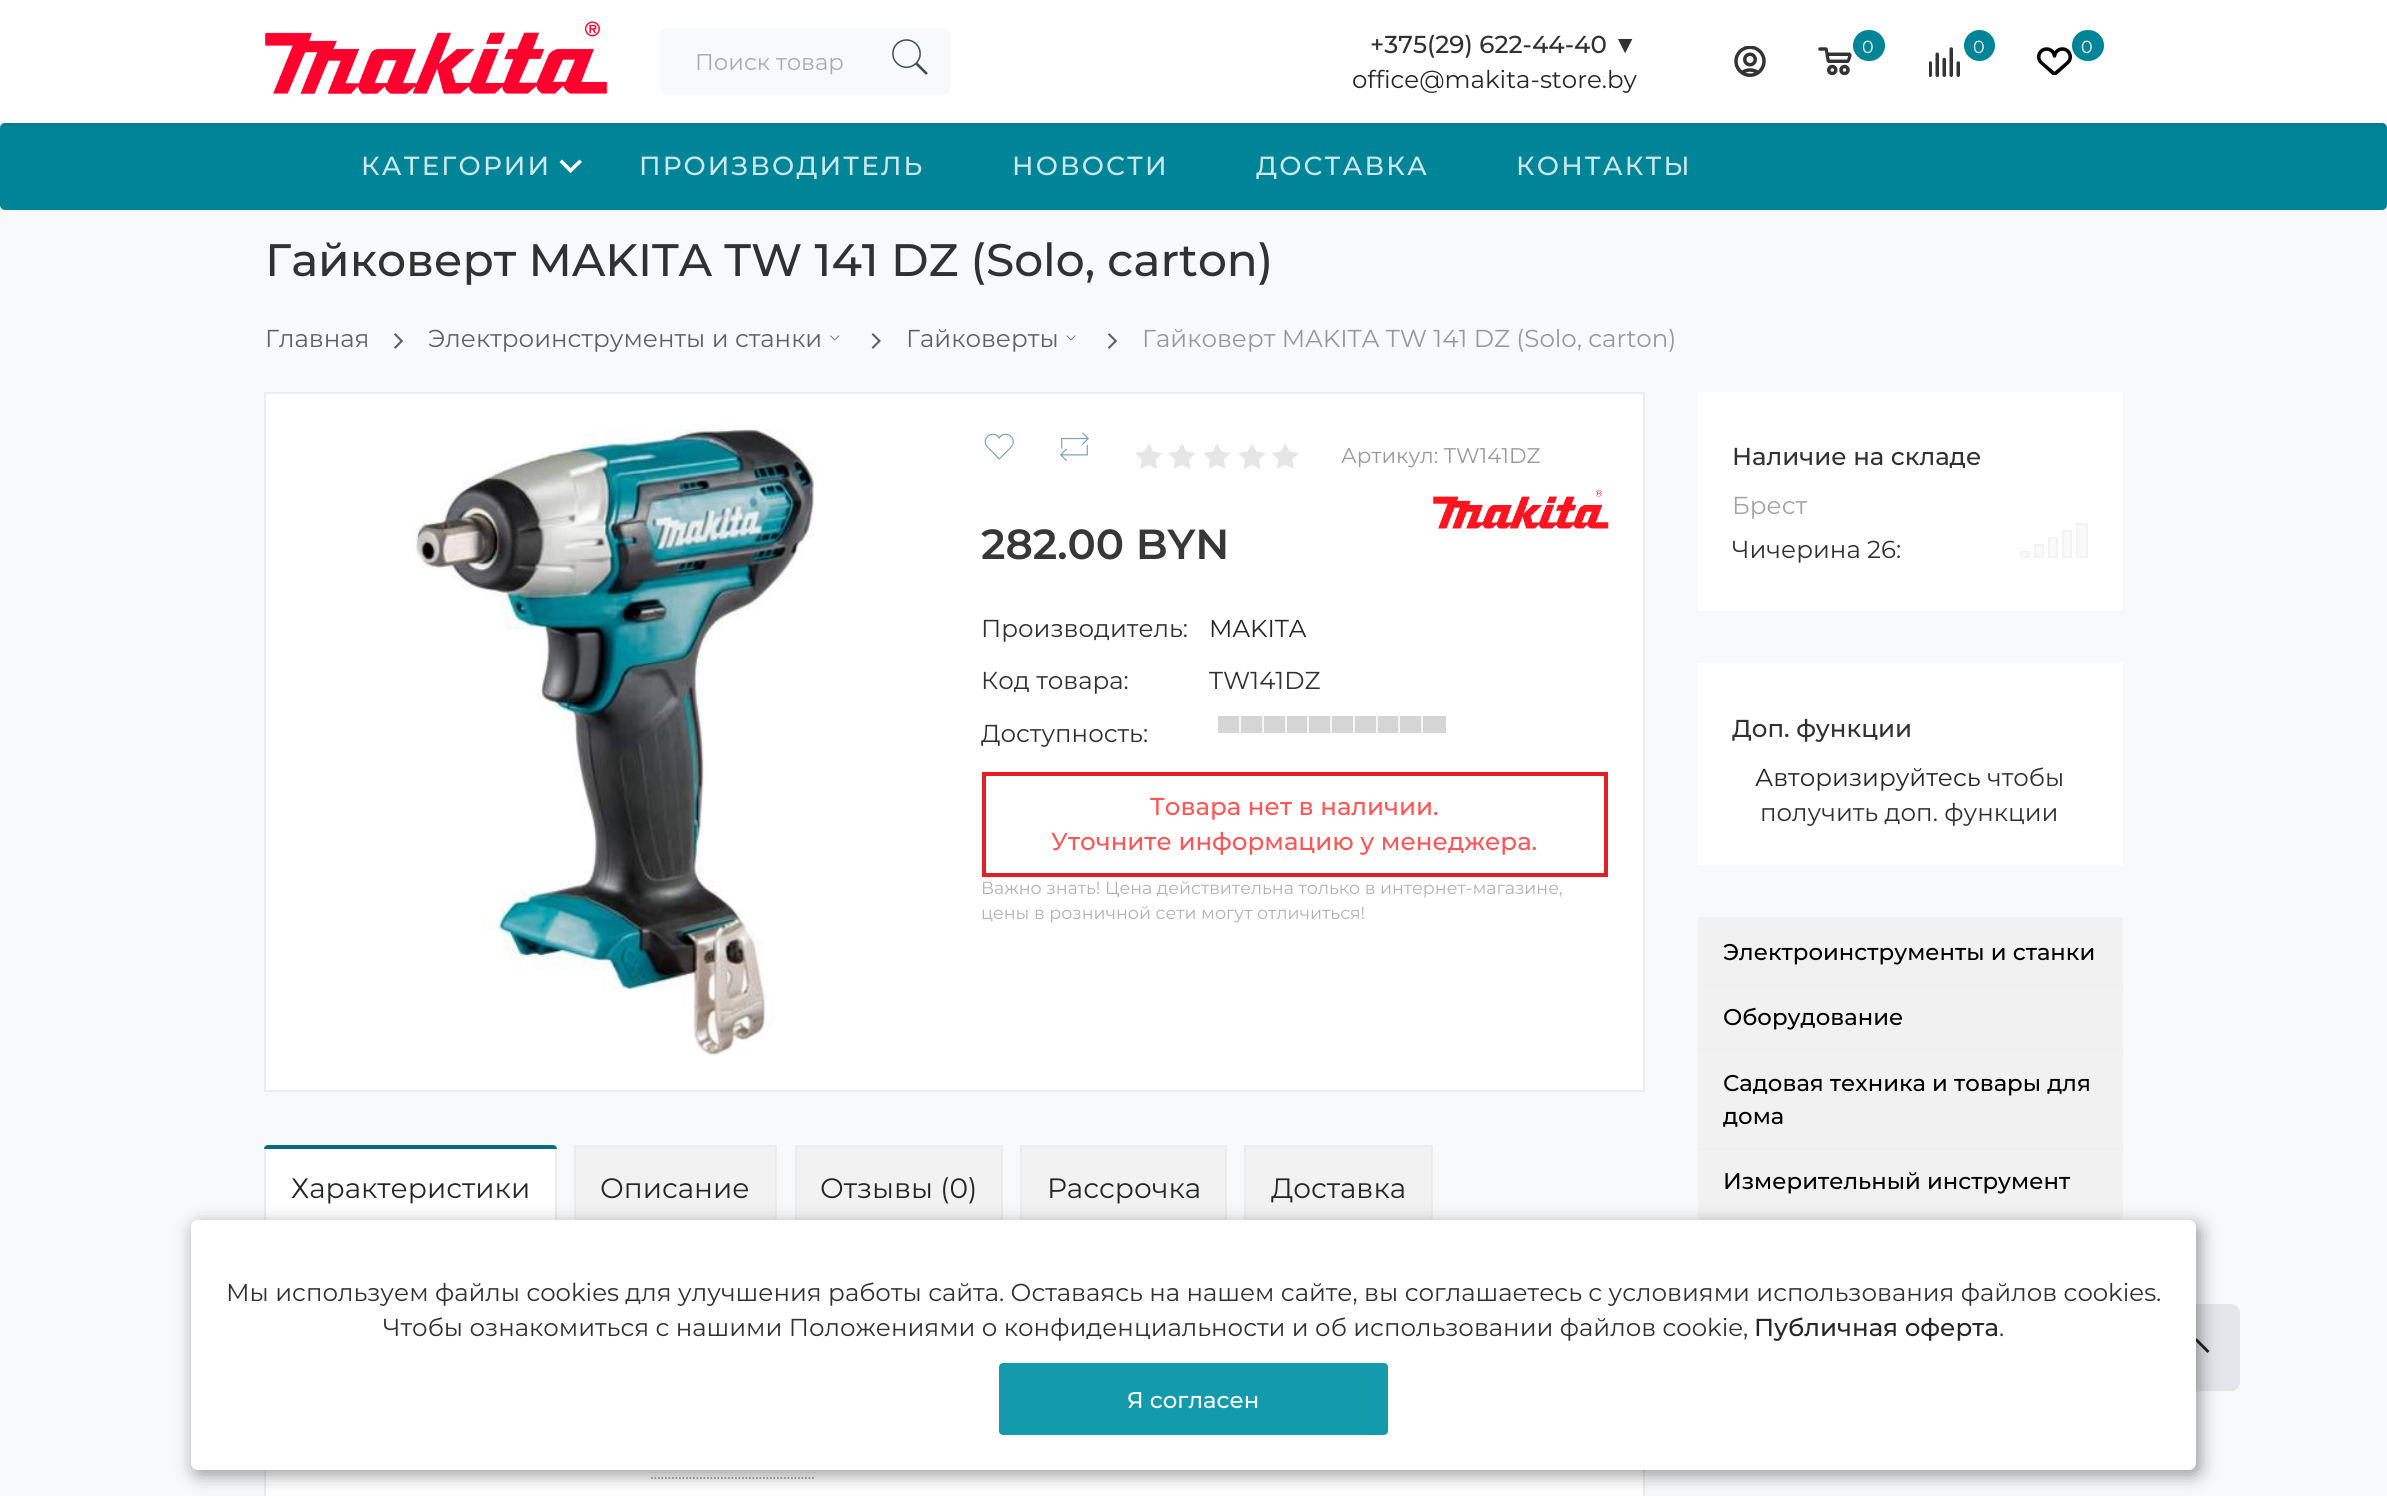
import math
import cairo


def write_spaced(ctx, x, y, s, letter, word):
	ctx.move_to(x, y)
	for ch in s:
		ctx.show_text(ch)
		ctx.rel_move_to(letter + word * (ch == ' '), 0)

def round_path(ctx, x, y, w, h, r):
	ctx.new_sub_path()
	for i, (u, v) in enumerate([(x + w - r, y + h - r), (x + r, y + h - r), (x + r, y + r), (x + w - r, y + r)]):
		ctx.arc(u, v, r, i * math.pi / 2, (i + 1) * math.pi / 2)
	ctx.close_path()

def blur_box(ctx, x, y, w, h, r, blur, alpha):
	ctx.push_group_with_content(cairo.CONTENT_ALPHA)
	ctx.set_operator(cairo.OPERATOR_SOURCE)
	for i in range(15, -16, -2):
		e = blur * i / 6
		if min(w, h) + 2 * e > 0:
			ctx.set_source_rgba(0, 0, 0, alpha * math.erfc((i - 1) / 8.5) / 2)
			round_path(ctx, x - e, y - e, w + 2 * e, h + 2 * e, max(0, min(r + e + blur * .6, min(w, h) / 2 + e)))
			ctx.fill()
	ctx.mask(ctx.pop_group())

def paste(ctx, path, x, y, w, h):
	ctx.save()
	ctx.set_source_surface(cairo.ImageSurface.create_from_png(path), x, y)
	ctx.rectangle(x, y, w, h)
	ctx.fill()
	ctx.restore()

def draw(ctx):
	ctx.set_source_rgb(0.969, 0.973, 0.984)
	ctx.paint()
	ctx.set_source_rgb(0.945, 0.945, 0.949)
	ctx.rectangle(1698, 1215, 425, 5)
	ctx.rectangle(1698, 1150, 425, 63)
	ctx.fill()
	ctx.set_source_rgb(0.937, 0.937, 0.937)
	ctx.rectangle(1698, 1213, 425, 2)
	ctx.fill()
	ctx.set_source_rgb(0.945, 0.945, 0.949)
	ctx.rectangle(1698, 1050, 425, 98)
	ctx.fill()
	ctx.set_source_rgb(0.937, 0.937, 0.937)
	ctx.rectangle(1698, 1148, 425, 2)
	ctx.fill()
	ctx.set_source_rgb(0.945, 0.945, 0.949)
	ctx.rectangle(1698, 985, 425, 63)
	ctx.fill()
	ctx.set_source_rgb(0.937, 0.937, 0.937)
	ctx.rectangle(1698, 1048, 425, 2)
	ctx.fill()
	ctx.set_source_rgb(0, 0.522, 0.596)
	round_path(ctx, 0, 123, 2387, 87, 5)
	ctx.fill()
	ctx.set_source_rgb(0, 0, 0)
	blur_box(ctx, 2, 7, 2383, 119, 0, 2, 0.08)
	ctx.set_source_rgb(1, 1, 1)
	ctx.rectangle(0, 0, 2387, 123)
	ctx.fill()
	paste(ctx, 'media/1.png', 265, 21, 343, 73)
	ctx.set_source_rgb(0.969, 0.973, 0.984)
	round_path(ctx, 660, 28, 290, 67, 7)
	ctx.fill()
	ctx.select_font_face('Montserrat')
	ctx.set_font_size(22.75)
	ctx.set_source_rgb(0.671, 0.671, 0.671)
	ctx.move_to(695, 70)
	ctx.show_text('Поиск товар')
	paste(ctx, 'media/2.png', 892, 39, 36, 36)
	ctx.select_font_face('Montserrat Medium')
	ctx.set_font_size(24.5)
	ctx.set_source_rgb(0.192, 0.192, 0.192)
	ctx.move_to(1370, 53)
	ctx.show_text('+375(29) 622-44-40')
	ctx.select_font_face('Liberation Sans')
	ctx.move_to(1613, 53)
	ctx.show_text('▼')
	ctx.select_font_face('Montserrat')
	ctx.set_source_rgb(0.145, 0.153, 0.153)
	ctx.move_to(1352, 88)
	ctx.show_text('office@makita-store.by')
	paste(ctx, 'media/3.png', 1734, 46, 32, 31)
	paste(ctx, 'media/4.png', 1818, 47, 34, 28)
	ctx.set_source_rgb(0, 0.522, 0.596)
	round_path(ctx, 1853, 30, 32, 31, 15.5)
	ctx.fill()
	ctx.set_font_size(17.5)
	ctx.set_source_rgb(1, 1, 1)
	ctx.move_to(1862, 53)
	ctx.show_text('0')
	paste(ctx, 'media/5.png', 1929, 47, 31, 30)
	ctx.set_source_rgb(0, 0.522, 0.596)
	ctx.arc(1979.5, 45.5, 15.5, 0, 2 * math.pi)
	ctx.fill()
	ctx.set_source_rgb(1, 1, 1)
	ctx.move_to(1973, 53)
	ctx.show_text('0')
	paste(ctx, 'media/6.png', 2037, 47, 35, 28)
	ctx.set_source_rgb(0, 0.522, 0.596)
	round_path(ctx, 2072, 30, 32, 31, 15.5)
	ctx.fill()
	ctx.set_source_rgb(1, 1, 1)
	ctx.move_to(2081, 53)
	ctx.show_text('0')
	ctx.select_font_face('Montserrat Medium')
	ctx.set_font_size(26.25)
	ctx.set_source_rgb(0.8, 0.906, 0.918)
	write_spaced(ctx, 361, 175, 'КАТЕГОРИИ', 2.1, 0)
	ctx.set_source_rgb(1, 1, 1)
	ctx.new_path()
	ctx.move_to(562, 159.5)
	ctx.line_to(573, 170.5)
	ctx.line_to(570.5, 173)
	ctx.line_to(559.5, 162)
	ctx.close_path()
	ctx.fill()
	ctx.new_path()
	ctx.move_to(568, 170.5)
	ctx.line_to(579.5, 159.5)
	ctx.line_to(582, 162)
	ctx.line_to(570.5, 173)
	ctx.close_path()
	ctx.fill()
	ctx.set_source_rgb(0.8, 0.906, 0.918)
	for x, y, s in [
		(639, 175, 'ПРОИЗВОДИТЕЛЬ'),
		(1012, 175, 'НОВОСТИ'),
		(1256, 175, 'ДОСТАВКА'),
		(1516, 175, 'КОНТАКТЫ'),
	]:
		write_spaced(ctx, x, y, s, 2.1, 0)
	ctx.set_font_size(45.5)
	ctx.set_source_rgb(0.192, 0.192, 0.192)
	ctx.move_to(265, 276)
	ctx.show_text('Гайковерт MAKITA TW 141 DZ (Solo, carton)')
	ctx.select_font_face('Montserrat')
	ctx.set_font_size(24.5)
	ctx.set_source_rgb(0.38, 0.38, 0.38)
	ctx.move_to(265, 347)
	ctx.show_text('Главная')
	paste(ctx, 'media/7.png', 394, 333, 9, 16)
	ctx.move_to(428, 347)
	ctx.show_text('Электроинструменты и станки')
	paste(ctx, 'media/8.png', 830, 335, 10, 6)
	paste(ctx, 'media/9.png', 871, 333, 10, 16)
	ctx.move_to(906, 347)
	ctx.show_text('Гайковерты')
	paste(ctx, 'media/10.png', 1066, 335, 10, 6)
	paste(ctx, 'media/7.png', 1108, 333, 9, 16)
	ctx.set_source_rgb(0.6, 0.6, 0.6)
	ctx.move_to(1142, 347)
	ctx.show_text('Гайковерт MAKITA TW 141 DZ (Solo, carton)')
	ctx.set_source_rgb(1, 1, 1)
	ctx.rectangle(265, 393, 1379, 698)
	ctx.fill_preserve()
	ctx.set_source_rgb(0.925, 0.925, 0.925)
	ctx.stroke()
	paste(ctx, 'media/11.png', 413, 429, 411, 627)
	paste(ctx, 'media/12.png', 984, 433, 30, 27)
	paste(ctx, 'media/13.png', 1060, 432, 29, 29)
	paste(ctx, 'media/14.png', 1136, 444, 26, 25)
	paste(ctx, 'media/15.png', 1169, 444, 26, 25)
	paste(ctx, 'media/15.png', 1204, 444, 26, 25)
	paste(ctx, 'media/15.png', 1239, 444, 26, 25)
	paste(ctx, 'media/16.png', 1272, 444, 26, 25)
	ctx.set_font_size(21.25)
	ctx.set_source_rgb(0.6, 0.6, 0.6)
	ctx.move_to(1341, 463)
	ctx.show_text('Артикул: TW141DZ')
	paste(ctx, 'media/17.png', 1433, 490, 176, 39)
	ctx.select_font_face('Montserrat SemiBold')
	ctx.set_font_size(42)
	ctx.set_source_rgb(0.216, 0.216, 0.216)
	ctx.move_to(981, 559)
	ctx.show_text('282.00 BYN')
	ctx.select_font_face('Montserrat')
	ctx.set_font_size(24.5)
	ctx.set_source_rgb(0.192, 0.192, 0.192)
	ctx.move_to(981, 637)
	ctx.show_text('Производитель:')
	ctx.set_source_rgb(0.145, 0.153, 0.153)
	ctx.move_to(1209, 637)
	ctx.show_text('MAKITA')
	ctx.set_source_rgb(0.192, 0.192, 0.192)
	for x, y, s in [
		(981, 689, 'Код товара:'),
		(1209, 689, 'TW141DZ'),
		(981, 742, 'Доступность:'),
	]:
		ctx.move_to(x, y)
		ctx.show_text(s)
	ctx.set_source_rgb(0.835, 0.835, 0.835)
	ctx.rectangle(1218, 716, 228, 17)
	ctx.fill()
	ctx.set_source_rgb(0.961, 0.961, 0.961)
	ctx.rectangle(1239, 716, 2, 17)
	ctx.rectangle(1262, 716, 2, 17)
	ctx.rectangle(1285, 716, 2, 17)
	ctx.rectangle(1307, 716, 2, 17)
	ctx.rectangle(1330, 716, 2, 17)
	ctx.rectangle(1353, 716, 2, 17)
	ctx.rectangle(1376, 716, 2, 17)
	ctx.rectangle(1398, 716, 2, 17)
	ctx.rectangle(1421, 716, 2, 17)
	ctx.fill()
	ctx.rectangle(984, 774, 622, 101)
	ctx.set_source_rgb(0.89, 0.122, 0.145)
	ctx.set_line_width(4)
	ctx.stroke()
	ctx.select_font_face('Montserrat Medium')
	ctx.set_source_rgb(1, 0.333, 0.333)
	ctx.move_to(1150, 815)
	ctx.show_text('Товара нет в наличии.')
	ctx.move_to(1051, 850)
	ctx.show_text('Уточните информацию у менеджера.')
	ctx.select_font_face('Montserrat')
	ctx.set_font_size(17.5)
	ctx.set_source_rgb(0.702, 0.694, 0.694)
	ctx.move_to(981, 894)
	ctx.show_text('Важно знать! Цена действительна только в интернет-магазине,')
	ctx.move_to(981, 919)
	ctx.show_text('цены в розничной сети могут отличиться!')
	ctx.rectangle(265, 1146, 291, 90)
	ctx.set_source_rgb(0.925, 0.925, 0.925)
	ctx.set_line_width(2)
	ctx.stroke()
	ctx.set_source_rgb(0.039, 0.42, 0.514)
	ctx.new_path()
	ctx.move_to(268, 1145)
	ctx.line_to(553, 1145)
	ctx.curve_to(555, 1145, 557, 1147, 557, 1149)
	ctx.line_to(264, 1149)
	ctx.curve_to(264, 1147, 266, 1145, 268, 1145)
	ctx.close_path()
	ctx.fill()
	ctx.set_source_rgb(1, 1, 1)
	ctx.rectangle(266, 1149, 289, 71)
	ctx.fill()
	ctx.set_font_size(28)
	ctx.set_source_rgb(0.145, 0.153, 0.153)
	ctx.move_to(291, 1198)
	ctx.show_text('Характеристики')
	ctx.set_source_rgb(0.949, 0.949, 0.953)
	ctx.rectangle(576, 1147, 199, 73)
	ctx.fill()
	ctx.rectangle(575, 1146, 201, 90)
	ctx.set_source_rgb(0.925, 0.925, 0.925)
	ctx.stroke()
	ctx.set_source_rgb(0.145, 0.153, 0.153)
	ctx.move_to(600, 1198)
	ctx.show_text('Описание')
	ctx.set_source_rgb(0.949, 0.949, 0.953)
	ctx.rectangle(797, 1147, 204, 73)
	ctx.fill()
	ctx.rectangle(796, 1146, 206, 90)
	ctx.set_source_rgb(0.925, 0.925, 0.925)
	ctx.stroke()
	ctx.set_source_rgb(0.145, 0.153, 0.153)
	ctx.move_to(820, 1198)
	ctx.show_text('Отзывы (0)')
	ctx.set_source_rgb(0.949, 0.949, 0.953)
	ctx.rectangle(1022, 1147, 203, 73)
	ctx.fill()
	ctx.rectangle(1021, 1146, 205, 90)
	ctx.set_source_rgb(0.925, 0.925, 0.925)
	ctx.stroke()
	ctx.set_source_rgb(0.145, 0.153, 0.153)
	ctx.move_to(1047, 1198)
	ctx.show_text('Рассрочка')
	ctx.set_source_rgb(0.949, 0.949, 0.953)
	ctx.rectangle(1246, 1147, 185, 73)
	ctx.fill()
	ctx.rectangle(1245, 1146, 187, 90)
	ctx.set_source_rgb(0.925, 0.925, 0.925)
	ctx.stroke()
	ctx.set_source_rgb(0.145, 0.153, 0.153)
	ctx.move_to(1271, 1198)
	ctx.show_text('Доставка')
	ctx.set_source_rgb(1, 1, 1)
	ctx.rectangle(266, 1470, 1377, 26)
	ctx.fill()
	ctx.rectangle(265, 1265, 1379, 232)
	ctx.set_source_rgb(0.925, 0.925, 0.925)
	ctx.stroke()
	ctx.new_path()
	ctx.move_to(651, 1478)
	ctx.line_to(815.5, 1478)
	ctx.set_source_rgb(0.651, 0.647, 0.647)
	ctx.set_line_width(1.8)
	ctx.set_dash([1.75, 1.75])
	ctx.stroke()
	ctx.set_source_rgb(1, 1, 1)
	ctx.rectangle(1698, 392, 425, 219)
	ctx.fill()
	ctx.select_font_face('Montserrat Medium')
	ctx.set_font_size(24.5)
	ctx.set_source_rgb(0.192, 0.192, 0.192)
	ctx.move_to(1732, 465)
	ctx.show_text('Наличие на складе')
	ctx.select_font_face('Montserrat')
	ctx.set_source_rgb(0.639, 0.639, 0.639)
	ctx.move_to(1732, 514)
	ctx.show_text('Брест')
	ctx.set_source_rgb(0.192, 0.192, 0.192)
	ctx.move_to(1732, 558)
	ctx.show_text('Чичерина 26:')
	ctx.set_source_rgb(0.98, 0.98, 0.98)
	ctx.rectangle(2021, 552, 8, 5)
	ctx.fill_preserve()
	ctx.set_source_rgb(0.953, 0.953, 0.953)
	ctx.set_line_width(2)
	ctx.set_dash([])
	ctx.stroke()
	ctx.set_source_rgb(0.98, 0.98, 0.98)
	ctx.rectangle(2035, 545, 8, 12)
	ctx.fill_preserve()
	ctx.set_source_rgb(0.953, 0.953, 0.953)
	ctx.stroke()
	ctx.set_source_rgb(0.98, 0.98, 0.98)
	ctx.rectangle(2049, 538, 8, 19)
	ctx.fill_preserve()
	ctx.set_source_rgb(0.953, 0.953, 0.953)
	ctx.stroke()
	ctx.set_source_rgb(0.98, 0.98, 0.98)
	ctx.rectangle(2063, 531, 8, 26)
	ctx.fill_preserve()
	ctx.set_source_rgb(0.953, 0.953, 0.953)
	ctx.stroke()
	ctx.set_source_rgb(0.98, 0.98, 0.98)
	ctx.rectangle(2077, 524, 10, 33)
	ctx.fill_preserve()
	ctx.set_source_rgb(0.953, 0.953, 0.953)
	ctx.stroke()
	ctx.set_source_rgb(1, 1, 1)
	ctx.rectangle(1698, 663, 425, 202)
	ctx.fill()
	ctx.select_font_face('Montserrat Medium')
	ctx.set_source_rgb(0.192, 0.192, 0.192)
	ctx.move_to(1732, 737)
	ctx.show_text('Доп. функции')
	ctx.select_font_face('Montserrat')
	ctx.set_source_rgb(0.145, 0.153, 0.153)
	ctx.move_to(1755, 786)
	ctx.show_text('Авторизируйтесь')
	ctx.set_source_rgb(0.192, 0.192, 0.192)
	ctx.move_to(1987, 786)
	ctx.show_text('чтобы')
	ctx.move_to(1760, 821)
	ctx.show_text('получить доп. функции')
	ctx.set_source_rgb(0.945, 0.945, 0.949)
	ctx.rectangle(1698, 917, 425, 67)
	ctx.fill()
	ctx.set_source_rgb(0.937, 0.937, 0.937)
	ctx.rectangle(1698, 984, 425, 1)
	ctx.fill()
	ctx.select_font_face('Montserrat Medium')
	ctx.set_font_size(22.75)
	ctx.set_source_rgb(0, 0, 0)
	for x, y, s in [
		(1723, 960, 'Электроинструменты и станки'),
		(1723, 1025, 'Оборудование'),
		(1723, 1091, 'Садовая техника и товары для'),
		(1723, 1124, 'дома'),
		(1723, 1189, 'Измерительный инструмент'),
	]:
		ctx.move_to(x, y)
		ctx.show_text(s)
	ctx.set_source_rgb(0.898, 0.902, 0.918)
	round_path(ctx, 2153, 1304, 87, 87, 9)
	ctx.fill()
	ctx.set_source_rgb(0.133, 0.133, 0.133)
	ctx.new_path()
	ctx.move_to(2198, 1339.5)
	ctx.line_to(2196, 1338)
	ctx.line_to(2183, 1351)
	ctx.line_to(2185, 1353)
	ctx.line_to(2196, 1341.5)
	ctx.line_to(2207.5, 1353)
	ctx.line_to(2209.5, 1351)
	ctx.close_path()
	ctx.fill()
	ctx.set_source_rgb(0, 0, 0)
	blur_box(ctx, 194, 1225, 2006, 250, 7, 9, 0.4)
	ctx.set_source_rgb(1, 1, 1)
	round_path(ctx, 191, 1220, 2005, 250, 7)
	ctx.fill()
	ctx.select_font_face('Montserrat')
	ctx.set_font_size(24.5)
	ctx.set_source_rgb(0.192, 0.192, 0.192)
	ctx.move_to(226, 1301)
	ctx.show_text('Мы используем файлы cookies для улучшения работы сайта. Оставаясь на нашем сайте, вы соглашаетесь с условиями использования файлов cookies.')
	ctx.move_to(383, 1336)
	ctx.show_text('Чтобы ознакомиться с нашими Положениями о конфиденциальности и об использовании файлов cookie,')
	ctx.select_font_face('Montserrat Medium')
	ctx.set_source_rgb(0.145, 0.153, 0.153)
	ctx.move_to(1754, 1336)
	ctx.show_text('Публичная оферта')
	ctx.select_font_face('Montserrat')
	ctx.set_source_rgb(0.192, 0.192, 0.192)
	ctx.move_to(1999, 1336)
	ctx.show_text('.')
	ctx.set_source_rgb(0.075, 0.604, 0.678)
	round_path(ctx, 1000, 1364, 387, 70, 3)
	ctx.fill_preserve()
	ctx.stroke()
	ctx.select_font_face('Montserrat Medium')
	ctx.set_font_size(22.75)
	ctx.set_source_rgb(1, 1, 1)
	ctx.move_to(1127, 1408)
	ctx.show_text('Я согласен')


surface = cairo.ImageSurface(cairo.FORMAT_RGB24, 2387, 1496)
ctx = cairo.Context(surface)
options = cairo.FontOptions()
options.set_hint_metrics(cairo.HINT_METRICS_OFF)
options.set_hint_style(cairo.HINT_STYLE_NONE)
ctx.set_font_options(options)
ctx.set_miter_limit(4)
draw(ctx)
surface.write_to_png('image.png')
